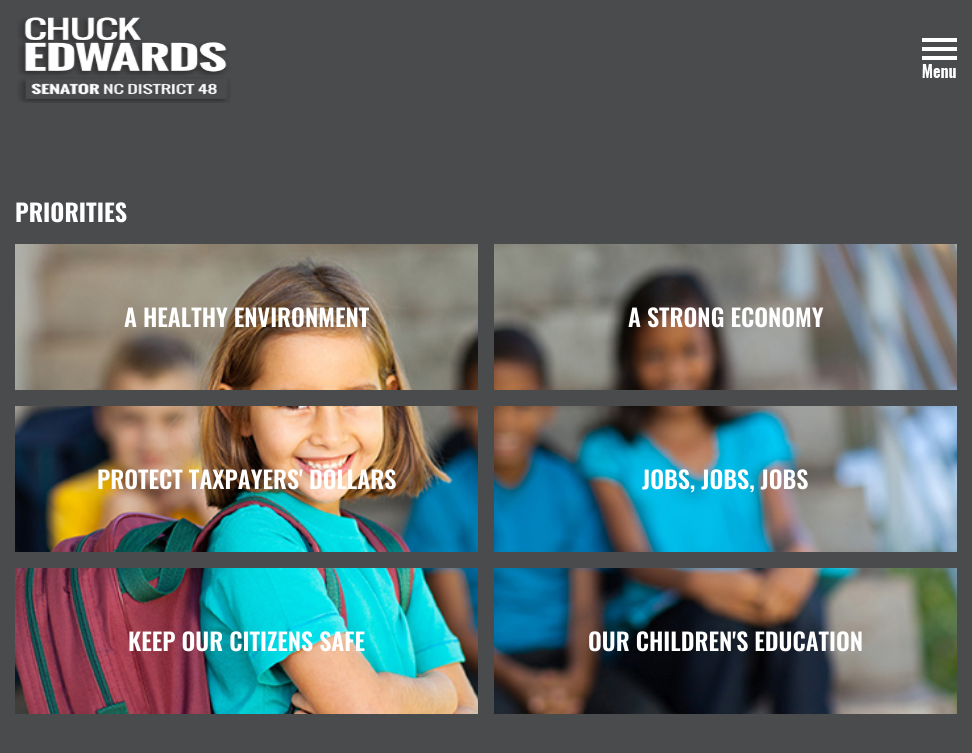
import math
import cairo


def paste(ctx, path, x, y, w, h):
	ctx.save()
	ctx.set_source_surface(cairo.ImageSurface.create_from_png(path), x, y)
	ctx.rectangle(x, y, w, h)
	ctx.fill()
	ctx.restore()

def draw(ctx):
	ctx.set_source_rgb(0.286, 0.294, 0.302)
	ctx.paint()
	paste(ctx, 'media/1.png', 17, 17, 214, 86)
	paste(ctx, 'media/2.png', 922, 38, 35, 40)
	ctx.select_font_face('Oswald', cairo.FONT_SLANT_NORMAL, cairo.FONT_WEIGHT_BOLD)
	ctx.set_font_size(24)
	ctx.set_source_rgb(1, 1, 1)
	ctx.move_to(15, 222)
	ctx.show_text('PRIORITIES')
	paste(ctx, 'media/3.png', 15, 244, 942, 470)
	ctx.set_source_rgb(0.286, 0.294, 0.302)
	ctx.rectangle(478, 236, 8, 162)
	ctx.fill()
	ctx.rectangle(15, 390, 942, 8)
	ctx.fill()
	ctx.select_font_face('Oswald SemiBold')
	ctx.set_source_rgb(1, 1, 1)
	ctx.move_to(124, 327)
	ctx.show_text('A HEALTHY ENVIRONMENT')
	ctx.set_source_rgb(0.286, 0.294, 0.302)
	ctx.rectangle(486, 236, 8, 162)
	ctx.fill()
	ctx.set_source_rgb(1, 1, 1)
	ctx.move_to(628, 327)
	ctx.show_text('A STRONG ECONOMY')
	ctx.set_source_rgb(0.286, 0.294, 0.302)
	ctx.rectangle(15, 398, 942, 8)
	ctx.rectangle(478, 398, 8, 162)
	ctx.rectangle(15, 552, 942, 8)
	ctx.fill()
	ctx.set_source_rgb(1, 1, 1)
	ctx.move_to(97, 489)
	ctx.show_text('PROTECT TAXPAYERS\' DOLLARS')
	ctx.set_source_rgb(0.286, 0.294, 0.302)
	ctx.rectangle(486, 398, 8, 162)
	ctx.fill()
	ctx.set_source_rgb(1, 1, 1)
	ctx.move_to(642, 489)
	ctx.show_text('JOBS, JOBS, JOBS')
	ctx.set_source_rgb(0.286, 0.294, 0.302)
	ctx.rectangle(15, 560, 942, 8)
	ctx.fill()
	ctx.rectangle(478, 560, 16, 162)
	ctx.fill()
	ctx.set_source_rgb(1, 1, 1)
	ctx.move_to(128, 651)
	ctx.show_text('KEEP OUR CITIZENS SAFE')
	ctx.move_to(588, 651)
	ctx.show_text('OUR CHILDREN\'S EDUCATION')


surface = cairo.ImageSurface(cairo.FORMAT_RGB24, 972, 753)
ctx = cairo.Context(surface)
options = cairo.FontOptions()
options.set_hint_metrics(cairo.HINT_METRICS_OFF)
options.set_hint_style(cairo.HINT_STYLE_NONE)
ctx.set_font_options(options)
ctx.set_miter_limit(4)
draw(ctx)
surface.write_to_png('image.png')
